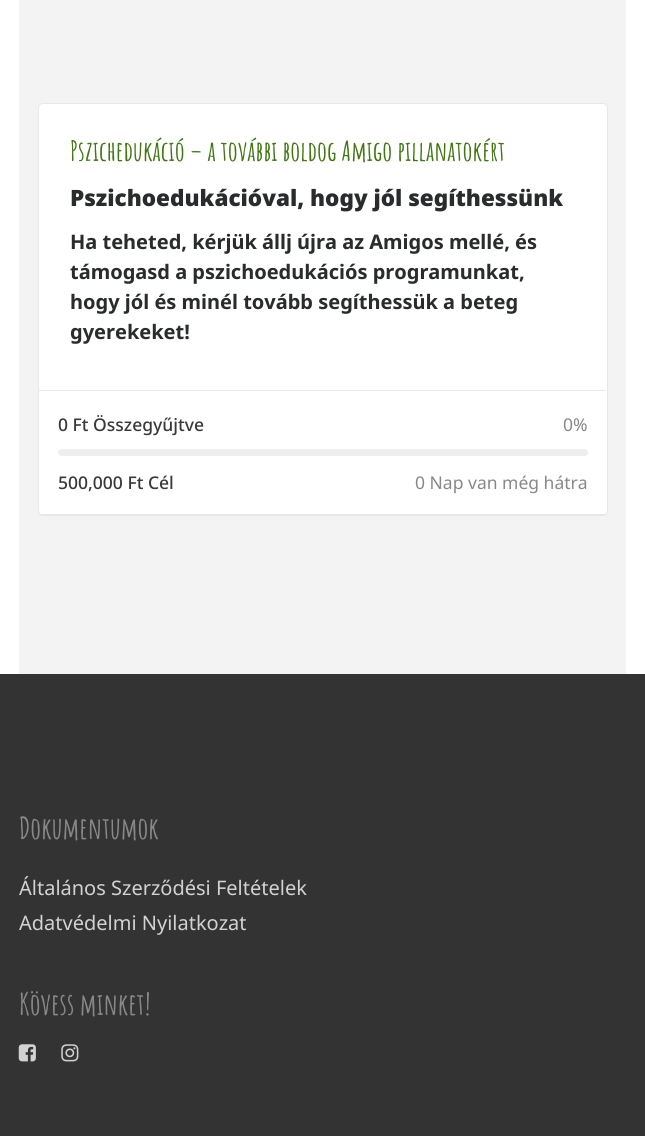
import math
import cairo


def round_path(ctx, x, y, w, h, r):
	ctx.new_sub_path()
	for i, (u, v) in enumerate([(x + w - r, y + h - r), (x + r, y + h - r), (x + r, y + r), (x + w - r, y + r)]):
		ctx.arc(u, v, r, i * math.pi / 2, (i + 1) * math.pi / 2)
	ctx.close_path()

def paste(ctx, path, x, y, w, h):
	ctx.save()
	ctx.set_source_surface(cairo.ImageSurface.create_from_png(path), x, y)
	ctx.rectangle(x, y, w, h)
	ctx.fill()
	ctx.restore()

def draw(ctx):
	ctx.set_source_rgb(1, 1, 1)
	ctx.paint()
	ctx.set_source_rgb(0.953, 0.953, 0.953)
	ctx.rectangle(19, 0, 607, 674)
	ctx.fill()
	ctx.set_source_rgb(1, 1, 1)
	round_path(ctx, 38.5, 103.5, 569, 412, 4.5)
	ctx.fill_preserve()
	ctx.set_source_rgb(0.906, 0.906, 0.906)
	ctx.set_line_width(1)
	ctx.stroke()
	ctx.select_font_face('Amatic SC', cairo.FONT_SLANT_NORMAL, cairo.FONT_WEIGHT_BOLD)
	ctx.set_font_size(27.5)
	ctx.set_source_rgb(0.263, 0.463, 0.075)
	ctx.move_to(70, 161)
	ctx.show_text('Pszichedukáció – a további boldog Amigo pillanatokért')
	ctx.select_font_face('Noto Sans Black')
	ctx.set_font_size(22.5)
	ctx.set_source_rgb(0.161, 0.169, 0.173)
	ctx.move_to(70, 206)
	ctx.show_text('Pszichoedukációval, hogy jól segíthessünk')
	ctx.select_font_face('Noto Sans', cairo.FONT_SLANT_NORMAL, cairo.FONT_WEIGHT_BOLD)
	ctx.set_font_size(20)
	for x, y, s in [
		(70, 249, 'Ha teheted, kérjük állj újra az Amigos mellé, és'),
		(70, 279, 'támogasd a pszichoedukációs programunkat,'),
		(70, 309, 'hogy jól és minél tovább segíthessük a beteg'),
		(70, 339, 'gyerekeket!'),
	]:
		ctx.move_to(x, y)
		ctx.show_text(s)
	ctx.set_source_rgb(0.906, 0.906, 0.906)
	ctx.rectangle(39, 390, 567, 1)
	ctx.fill()
	ctx.rectangle(39, 514, 567, 1)
	ctx.fill()
	ctx.select_font_face('Noto Sans Medium')
	ctx.set_font_size(17.5)
	ctx.set_source_rgb(0.224, 0.224, 0.224)
	ctx.move_to(58, 431)
	ctx.show_text('0 Ft Összegyűjtve')
	ctx.select_font_face('Noto Sans')
	ctx.set_source_rgb(0.533, 0.533, 0.533)
	ctx.move_to(563, 431)
	ctx.show_text('0%')
	ctx.set_source_rgb(0.933, 0.933, 0.933)
	round_path(ctx, 58, 449, 530, 7, 3.5)
	ctx.fill()
	ctx.select_font_face('Noto Sans Medium')
	ctx.set_source_rgb(0.224, 0.224, 0.224)
	ctx.move_to(58, 489)
	ctx.show_text('500,000 Ft Cél')
	ctx.select_font_face('Noto Sans')
	ctx.set_source_rgb(0.533, 0.533, 0.533)
	ctx.move_to(415, 489)
	ctx.show_text('0 Nap van még hátra')
	ctx.set_source_rgb(0.2, 0.2, 0.2)
	ctx.rectangle(0, 674, 645, 462)
	ctx.fill()
	ctx.select_font_face('Amatic SC', cairo.FONT_SLANT_NORMAL, cairo.FONT_WEIGHT_BOLD)
	ctx.set_font_size(30)
	ctx.set_source_rgb(0.533, 0.533, 0.533)
	ctx.move_to(19, 839)
	ctx.show_text('Dokumentumok')
	ctx.select_font_face('Noto Sans')
	ctx.set_font_size(20)
	ctx.set_source_rgb(0.824, 0.824, 0.824)
	ctx.move_to(19, 895)
	ctx.show_text('Általános Szerződési Feltételek')
	ctx.move_to(19, 930)
	ctx.show_text('Adatvédelmi Nyilatkozat')
	ctx.select_font_face('Amatic SC', cairo.FONT_SLANT_NORMAL, cairo.FONT_WEIGHT_BOLD)
	ctx.set_font_size(30)
	ctx.set_source_rgb(0.533, 0.533, 0.533)
	ctx.move_to(19, 1015)
	ctx.show_text('Kövess minket!')
	paste(ctx, 'media/1.png', 18, 1044, 18, 18)
	paste(ctx, 'media/2.png', 61, 1044, 18, 18)


surface = cairo.ImageSurface(cairo.FORMAT_RGB24, 645, 1136)
ctx = cairo.Context(surface)
options = cairo.FontOptions()
options.set_hint_metrics(cairo.HINT_METRICS_OFF)
options.set_hint_style(cairo.HINT_STYLE_NONE)
ctx.set_font_options(options)
ctx.set_miter_limit(4)
draw(ctx)
surface.write_to_png('image.png')
